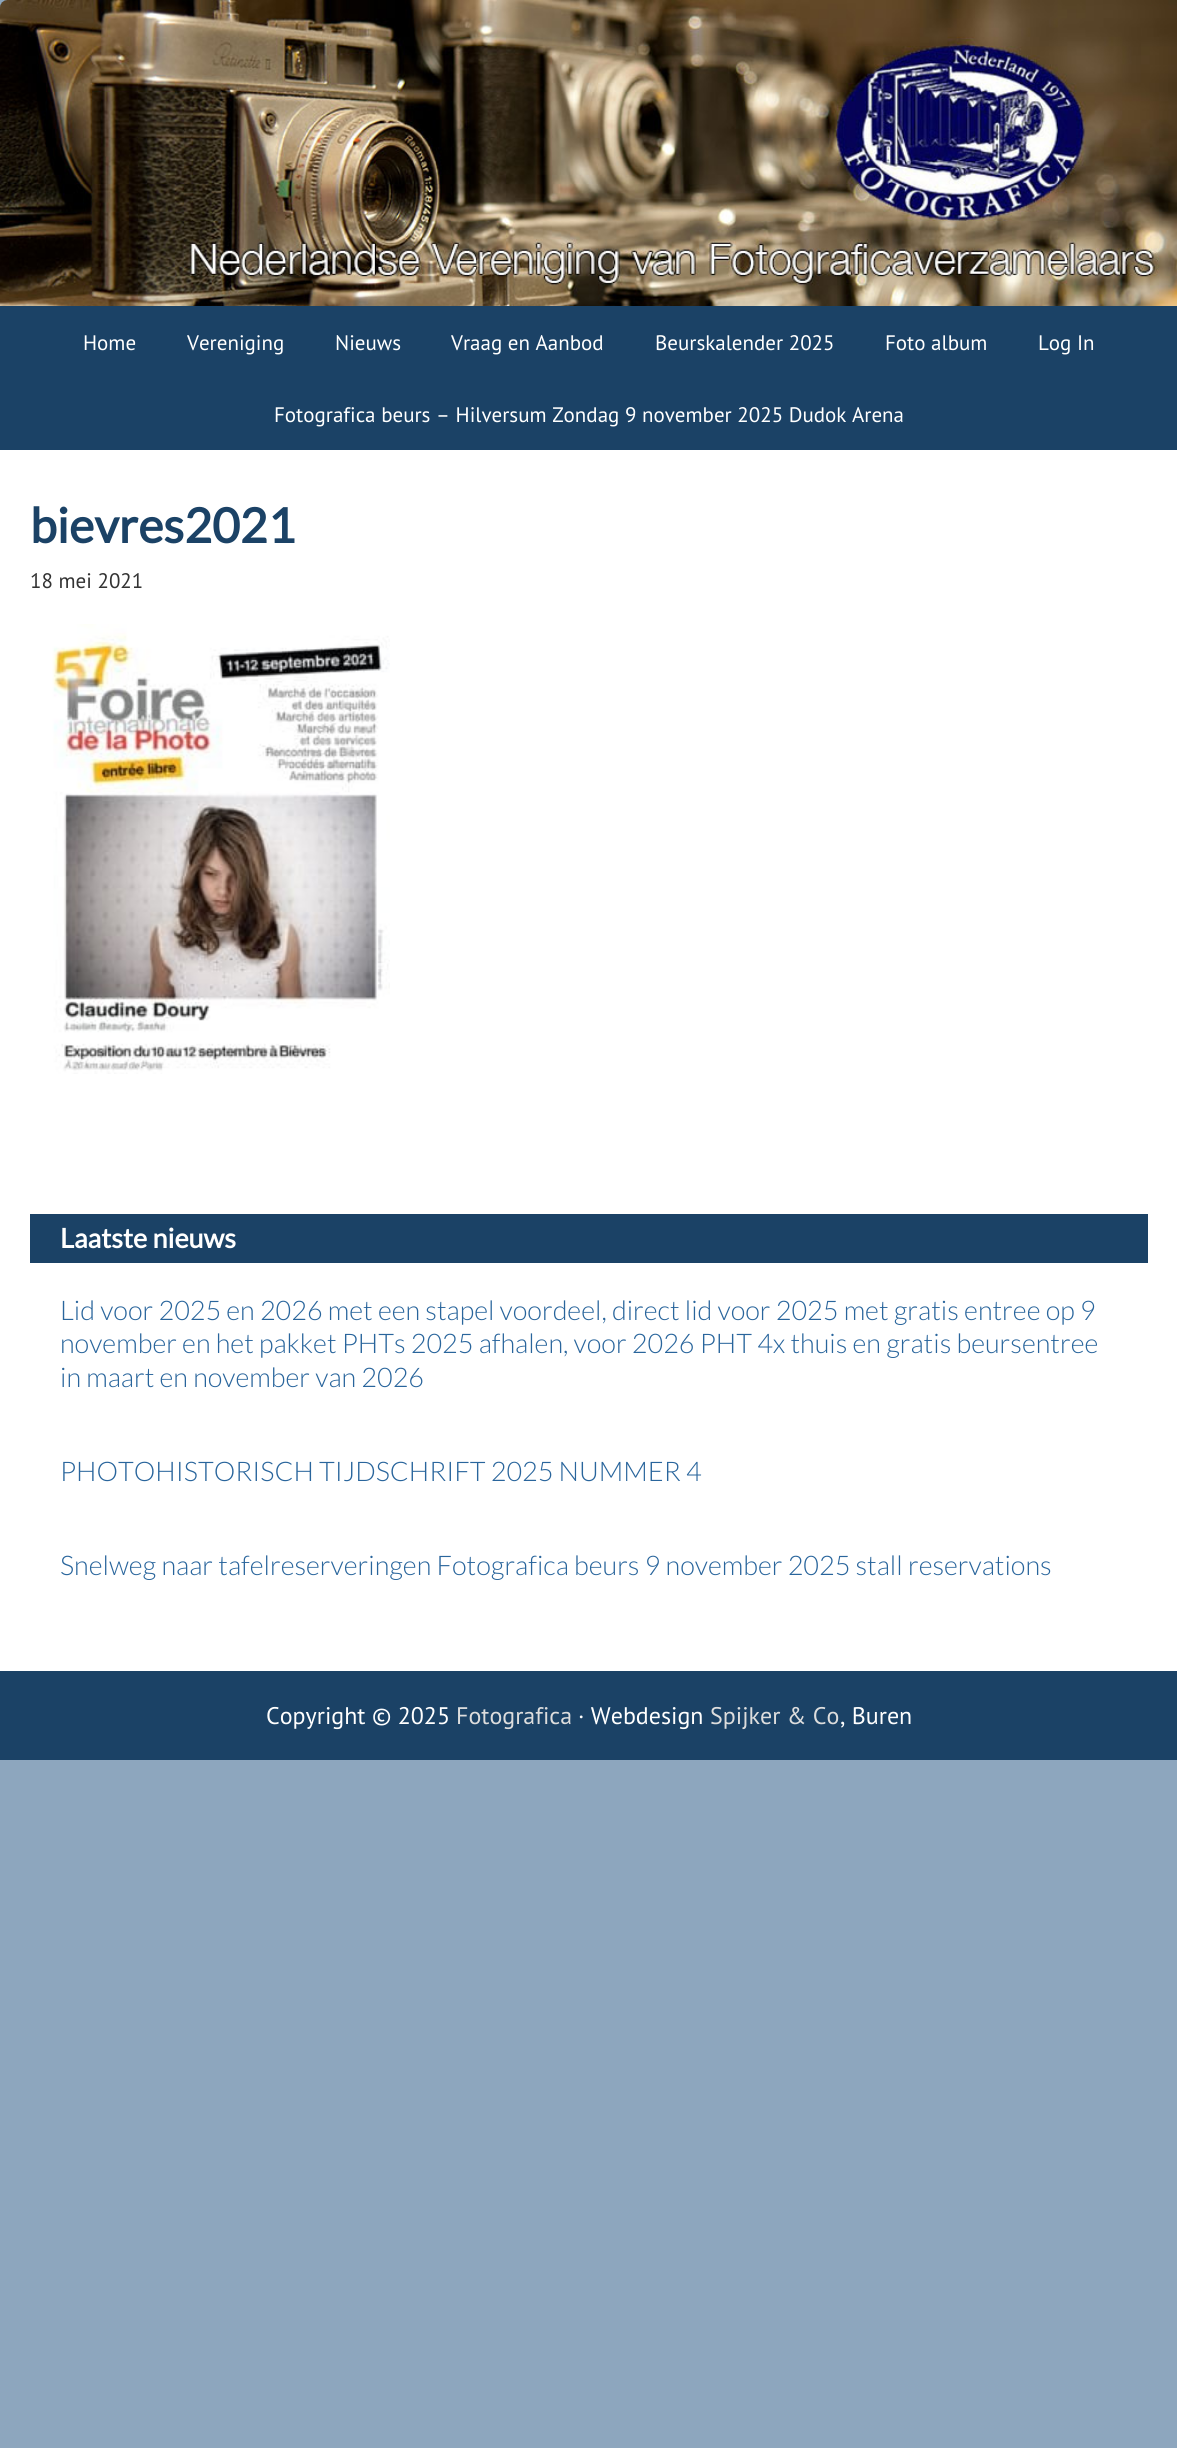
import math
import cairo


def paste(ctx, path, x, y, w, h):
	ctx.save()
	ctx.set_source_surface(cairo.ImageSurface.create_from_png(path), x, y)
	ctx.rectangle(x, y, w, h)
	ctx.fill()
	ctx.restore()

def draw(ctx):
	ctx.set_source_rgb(0.553, 0.651, 0.745)
	ctx.paint()
	paste(ctx, 'media/1.png', 0, 0, 1177, 306)
	ctx.set_source_rgb(0.106, 0.259, 0.4)
	ctx.rectangle(0, 306, 1177, 144)
	ctx.fill()
	ctx.select_font_face('PT Sans')
	ctx.set_font_size(21)
	ctx.set_source_rgb(1, 1, 1)
	for x, y, s in [
		(83, 350, 'Home'),
		(187, 350, 'Vereniging'),
		(335, 350, 'Nieuws'),
		(451, 350, 'Vraag en Aanbod'),
		(655, 350, 'Beurskalender 2025'),
		(885, 350, 'Foto album'),
		(1038, 350, 'Log In'),
		(274, 422, 'Fotografica beurs – Hilversum Zondag 9 november 2025 Dudok Arena'),
	]:
		ctx.move_to(x, y)
		ctx.show_text(s)
	ctx.rectangle(0, 450, 1177, 1221)
	ctx.fill()
	ctx.select_font_face('Lato', cairo.FONT_SLANT_NORMAL, cairo.FONT_WEIGHT_BOLD)
	ctx.set_font_size(48)
	ctx.set_source_rgb(0.106, 0.259, 0.4)
	ctx.move_to(30, 543)
	ctx.show_text('bievres2021')
	ctx.select_font_face('PT Sans')
	ctx.set_font_size(21)
	ctx.set_source_rgb(0.2, 0.2, 0.2)
	ctx.move_to(30, 588)
	ctx.show_text('18 mei 2021')
	paste(ctx, 'media/2.png', 52, 624, 338, 450)
	ctx.set_source_rgb(0.106, 0.259, 0.4)
	ctx.rectangle(30, 1214, 1118, 49)
	ctx.fill()
	ctx.select_font_face('Lato', cairo.FONT_SLANT_NORMAL, cairo.FONT_WEIGHT_BOLD)
	ctx.set_font_size(27)
	ctx.set_source_rgb(1, 1, 1)
	ctx.move_to(60, 1248)
	ctx.show_text('Laatste nieuws')
	ctx.select_font_face('Lato Light')
	ctx.set_source_rgb(0.161, 0.396, 0.612)
	for x, y, s in [
		(60, 1320, 'Lid voor 2025 en 2026 met een stapel voordeel, direct lid voor 2025 met gratis entree op 9'),
		(60, 1353, 'november en het pakket PHTs 2025 afhalen, voor 2026 PHT 4x thuis en gratis beursentree'),
		(60, 1387, 'in maart en november van 2026'),
		(60, 1481, 'PHOTOHISTORISCH TIJDSCHRIFT 2025 NUMMER 4'),
		(60, 1575, 'Snelweg naar tafelreserveringen Fotografica beurs 9 november 2025 stall reservations'),
	]:
		ctx.move_to(x, y)
		ctx.show_text(s)
	ctx.set_source_rgb(0.106, 0.259, 0.4)
	ctx.rectangle(0, 1671, 1177, 89)
	ctx.fill()
	ctx.select_font_face('PT Sans')
	ctx.set_font_size(24)
	ctx.set_source_rgb(1, 1, 1)
	ctx.move_to(266, 1724)
	ctx.show_text('Copyright © 2025')
	ctx.set_source_rgb(0.867, 0.867, 0.867)
	ctx.move_to(456, 1724)
	ctx.show_text('Fotografica')
	ctx.set_source_rgb(1, 1, 1)
	ctx.move_to(578, 1724)
	ctx.show_text('· Webdesign')
	ctx.set_source_rgb(0.867, 0.867, 0.867)
	ctx.move_to(710, 1724)
	ctx.show_text('Spijker & Co')
	ctx.set_source_rgb(1, 1, 1)
	ctx.move_to(840, 1724)
	ctx.show_text(', Buren')


surface = cairo.ImageSurface(cairo.FORMAT_RGB24, 1177, 2448)
ctx = cairo.Context(surface)
options = cairo.FontOptions()
options.set_hint_metrics(cairo.HINT_METRICS_OFF)
options.set_hint_style(cairo.HINT_STYLE_NONE)
ctx.set_font_options(options)
ctx.set_miter_limit(4)
draw(ctx)
surface.write_to_png('image.png')
